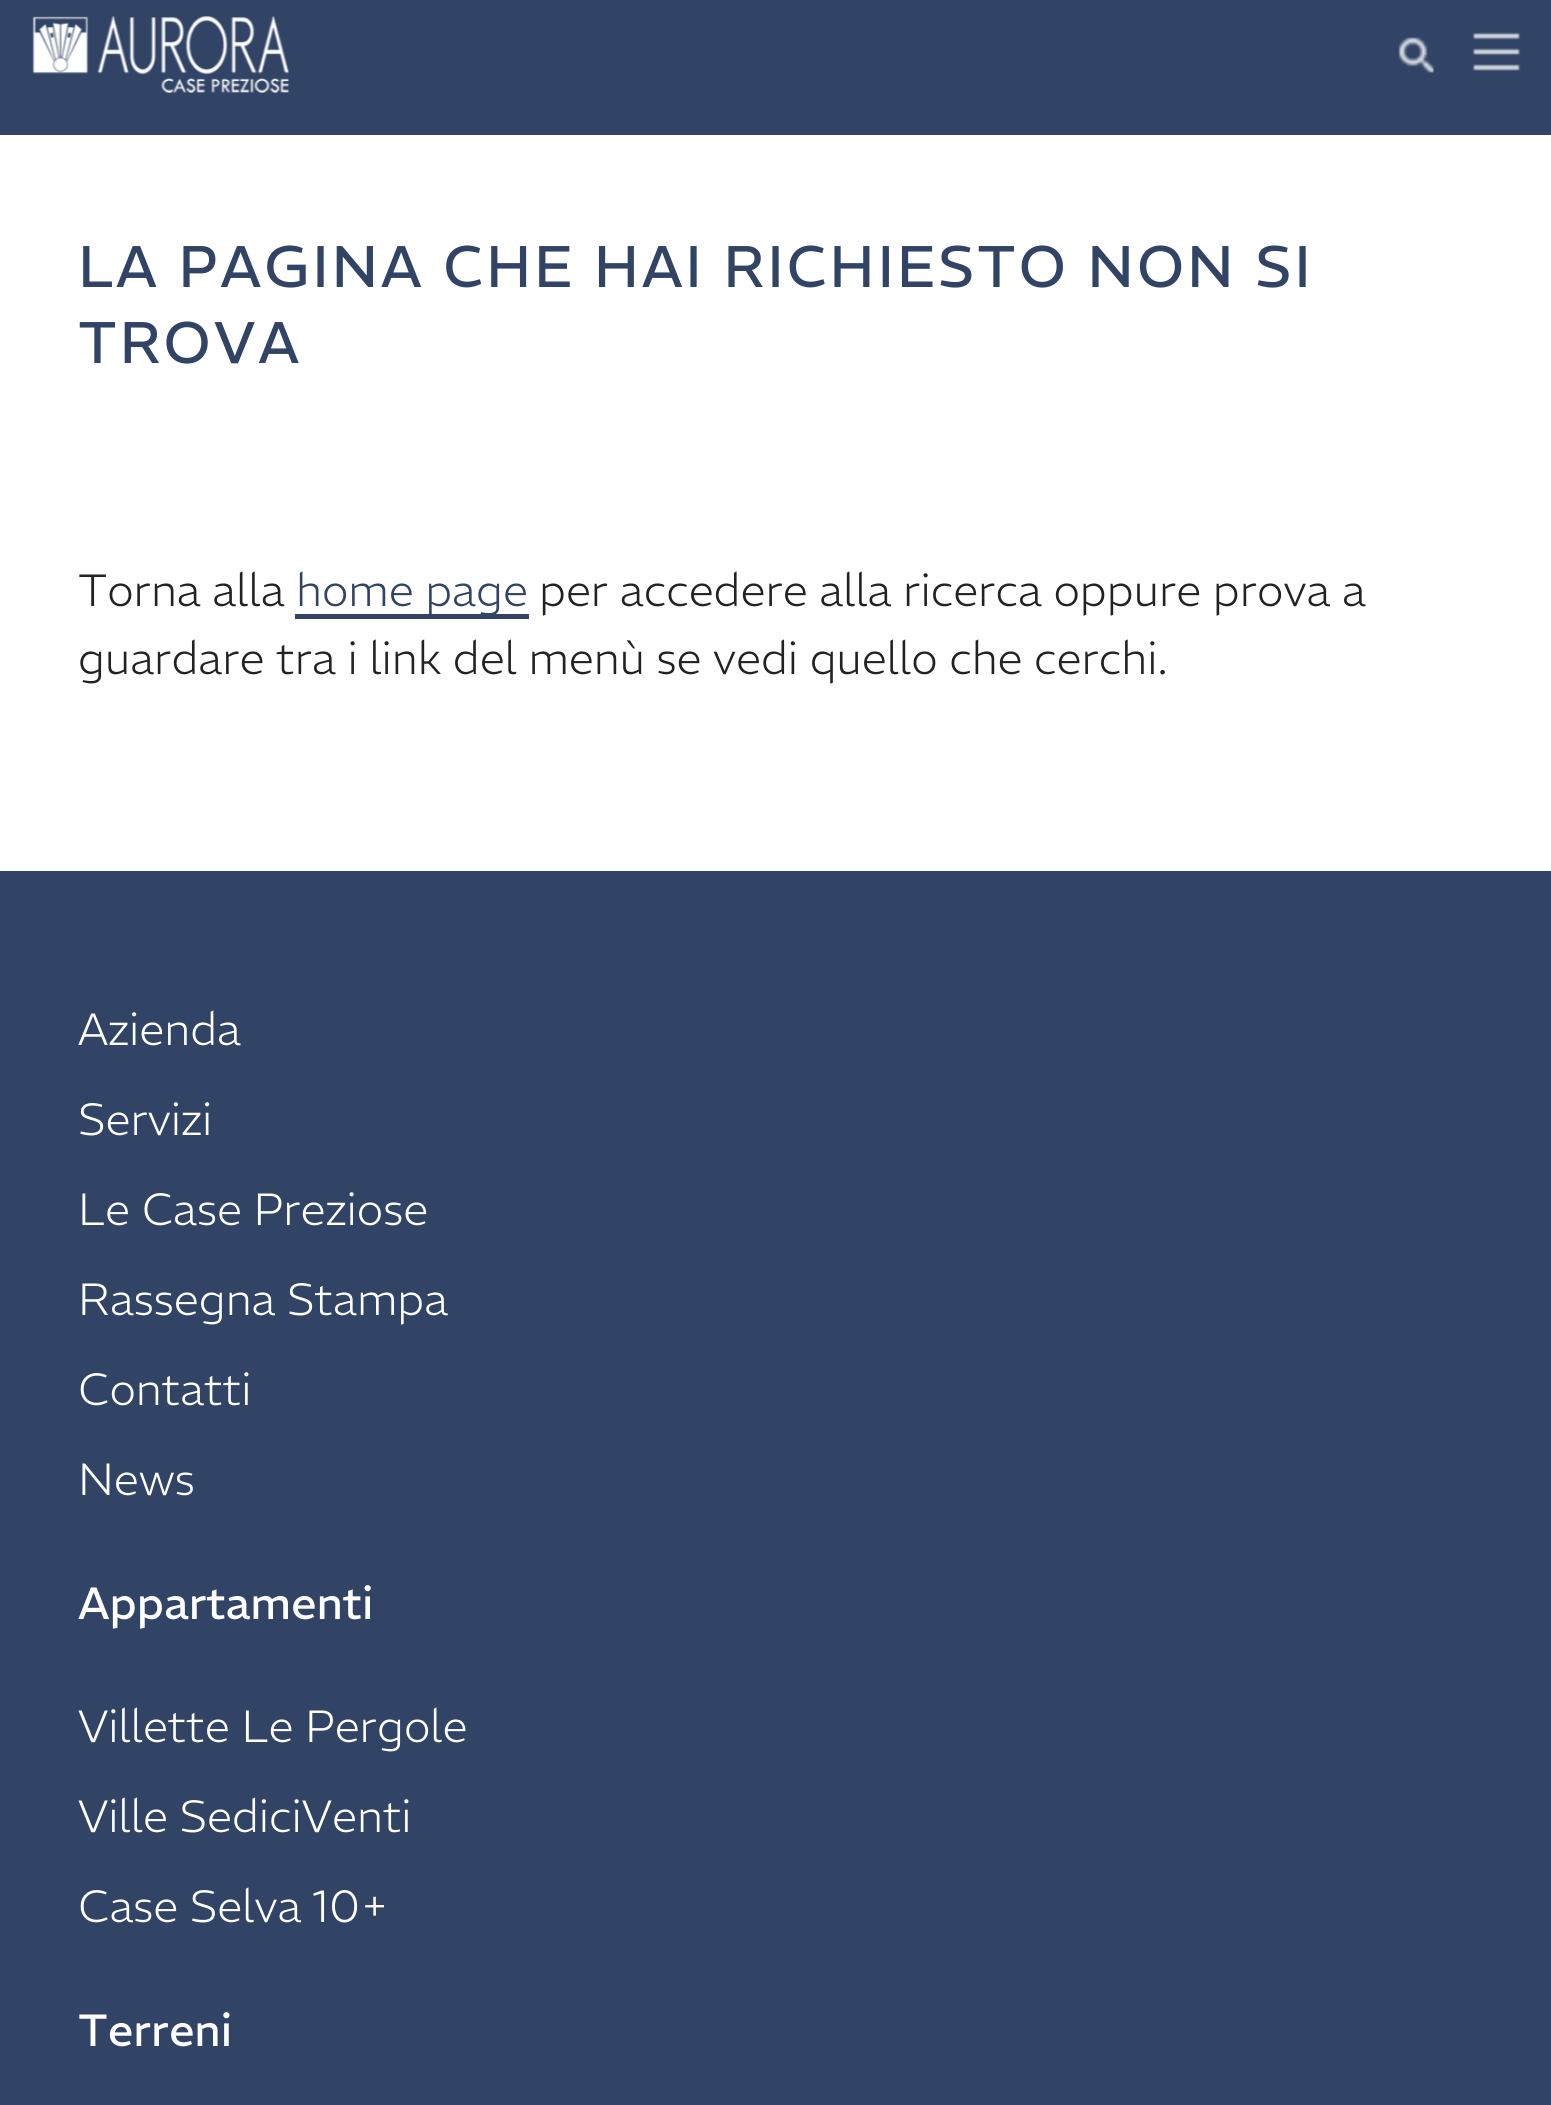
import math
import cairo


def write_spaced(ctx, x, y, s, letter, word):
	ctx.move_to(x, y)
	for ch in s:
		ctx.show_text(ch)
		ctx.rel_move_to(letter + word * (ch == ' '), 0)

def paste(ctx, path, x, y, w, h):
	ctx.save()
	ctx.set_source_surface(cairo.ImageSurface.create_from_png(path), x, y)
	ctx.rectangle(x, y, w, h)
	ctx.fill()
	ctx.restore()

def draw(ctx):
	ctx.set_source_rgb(1, 1, 1)
	ctx.paint()
	ctx.set_source_rgb(0.192, 0.267, 0.4)
	ctx.rectangle(0, 0, 1551, 135)
	ctx.fill()
	paste(ctx, 'media/1.png', 32, 16, 257, 77)
	paste(ctx, 'media/2.png', 1398, 37, 37, 36)
	paste(ctx, 'media/3.png', 1472, 32, 49, 39)
	ctx.select_font_face('REM')
	ctx.set_font_size(58.5)
	write_spaced(ctx, 78, 287, 'LA PAGINA CHE HAI RICHIESTO NON SI', 2.7, 0)
	write_spaced(ctx, 78, 363, 'TROVA', 2.7, 0)
	ctx.select_font_face('REM ExtraLight')
	ctx.set_font_size(45)
	ctx.set_source_rgb(0.133, 0.133, 0.133)
	ctx.move_to(78, 606)
	ctx.show_text('Torna alla')
	ctx.set_source_rgb(0.192, 0.267, 0.4)
	ctx.rectangle(295, 614, 234, 5)
	ctx.fill()
	ctx.move_to(296, 606)
	ctx.show_text('home page')
	ctx.set_source_rgb(0.133, 0.133, 0.133)
	ctx.move_to(539, 606)
	ctx.show_text('per accedere alla ricerca oppure prova a')
	ctx.move_to(78, 674)
	ctx.show_text('guardare tra i link del menù se vedi quello che cerchi.')
	ctx.set_source_rgb(0.192, 0.267, 0.4)
	ctx.rectangle(0, 871, 1551, 1234)
	ctx.fill()
	ctx.set_source_rgb(1, 1, 1)
	for x, y, s in [
		(78, 1045, 'Azienda'),
		(78, 1135, 'Servizi'),
		(78, 1225, 'Le Case Preziose'),
		(78, 1315, 'Rassegna Stampa'),
		(78, 1405, 'Contatti'),
		(78, 1495, 'News'),
	]:
		ctx.move_to(x, y)
		ctx.show_text(s)
	ctx.select_font_face('REM')
	ctx.move_to(78, 1619)
	ctx.show_text('Appartamenti')
	ctx.select_font_face('REM ExtraLight')
	for x, y, s in [
		(78, 1742, 'Villette Le Pergole'),
		(78, 1832, 'Ville SediciVenti'),
		(78, 1922, 'Case Selva 10+'),
	]:
		ctx.move_to(x, y)
		ctx.show_text(s)
	ctx.select_font_face('REM')
	ctx.move_to(78, 2046)
	ctx.show_text('Terreni')


surface = cairo.ImageSurface(cairo.FORMAT_RGB24, 1551, 2105)
ctx = cairo.Context(surface)
options = cairo.FontOptions()
options.set_hint_metrics(cairo.HINT_METRICS_OFF)
options.set_hint_style(cairo.HINT_STYLE_NONE)
ctx.set_font_options(options)
ctx.set_miter_limit(4)
draw(ctx)
surface.write_to_png('image.png')
